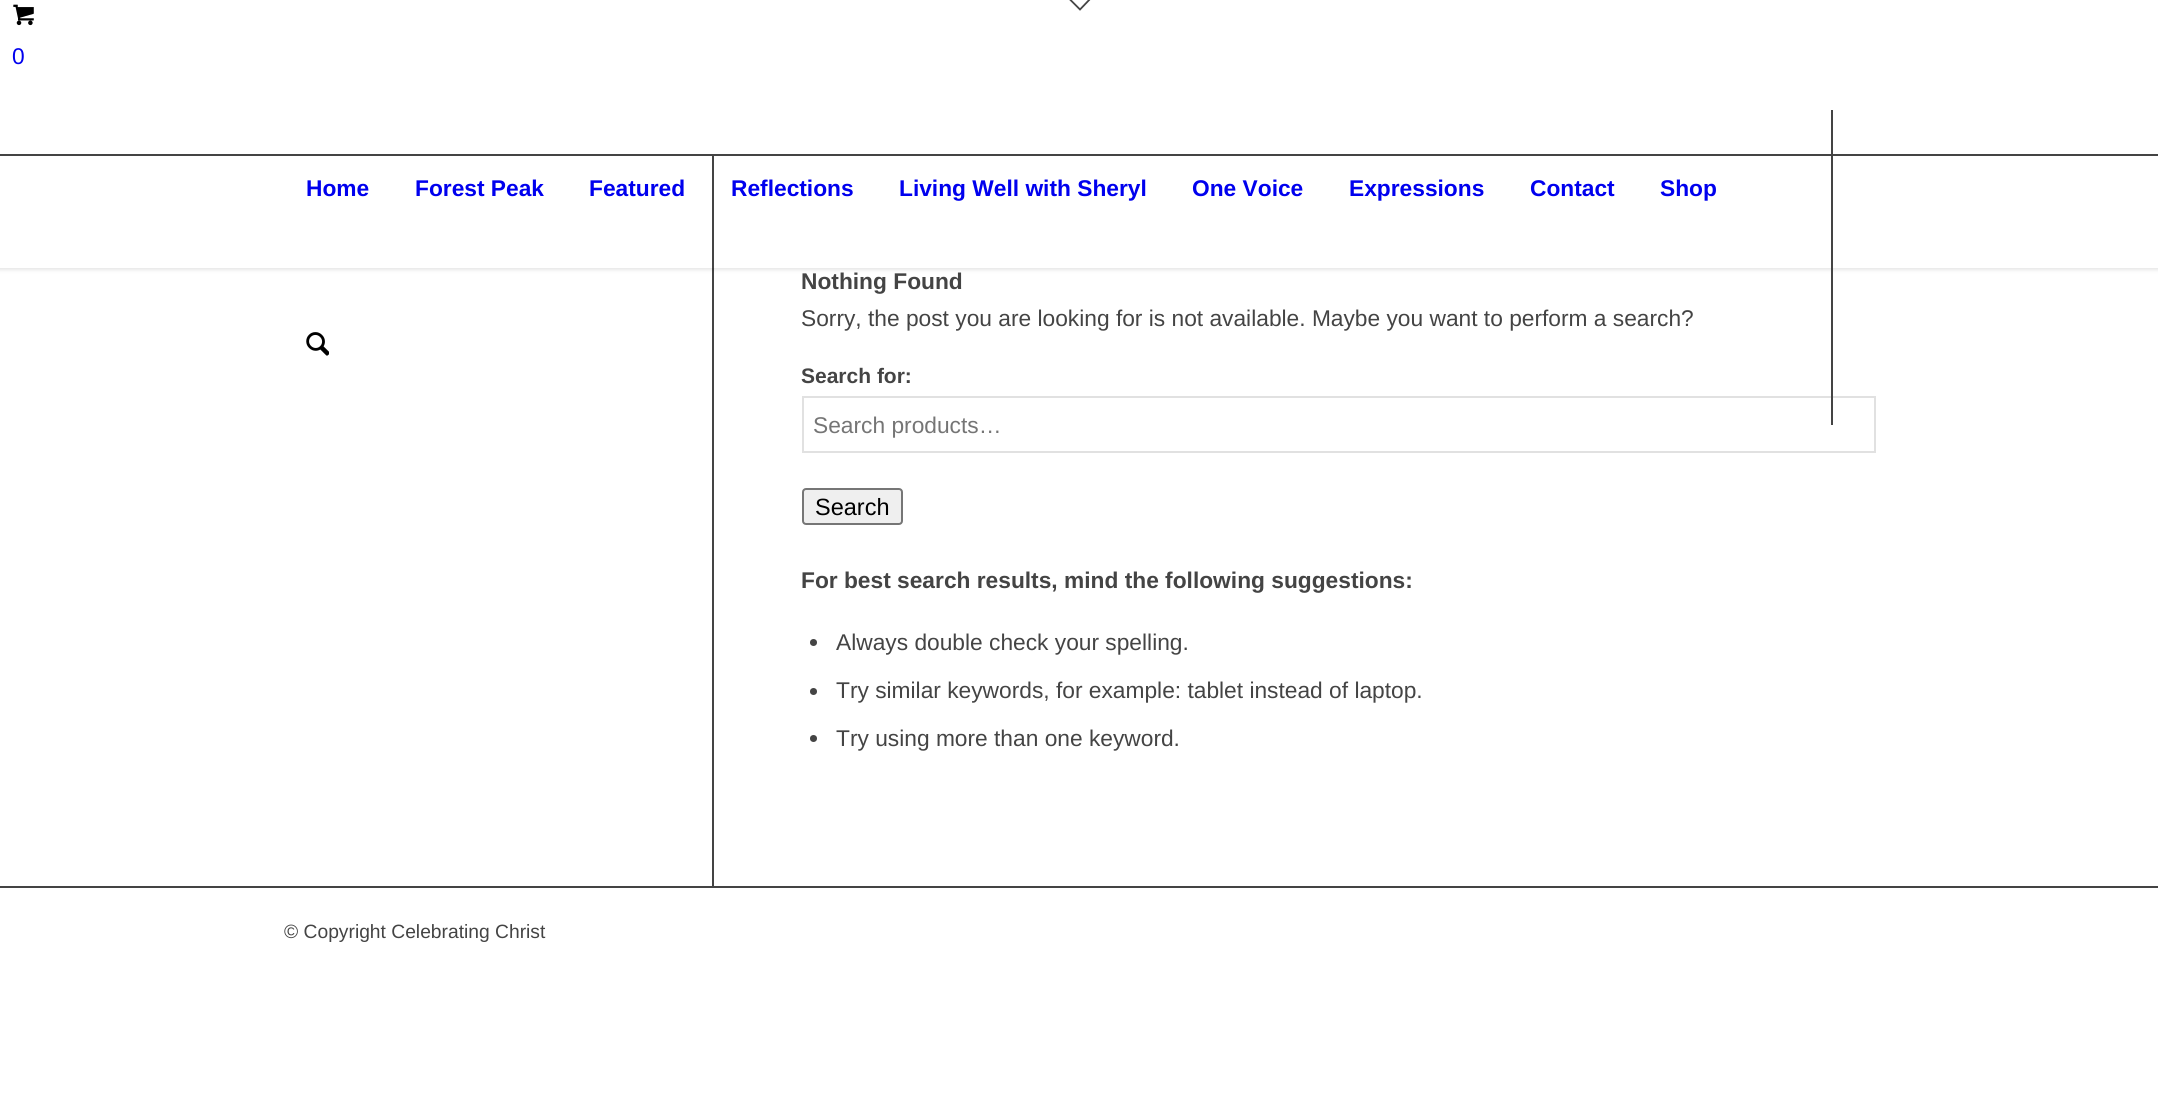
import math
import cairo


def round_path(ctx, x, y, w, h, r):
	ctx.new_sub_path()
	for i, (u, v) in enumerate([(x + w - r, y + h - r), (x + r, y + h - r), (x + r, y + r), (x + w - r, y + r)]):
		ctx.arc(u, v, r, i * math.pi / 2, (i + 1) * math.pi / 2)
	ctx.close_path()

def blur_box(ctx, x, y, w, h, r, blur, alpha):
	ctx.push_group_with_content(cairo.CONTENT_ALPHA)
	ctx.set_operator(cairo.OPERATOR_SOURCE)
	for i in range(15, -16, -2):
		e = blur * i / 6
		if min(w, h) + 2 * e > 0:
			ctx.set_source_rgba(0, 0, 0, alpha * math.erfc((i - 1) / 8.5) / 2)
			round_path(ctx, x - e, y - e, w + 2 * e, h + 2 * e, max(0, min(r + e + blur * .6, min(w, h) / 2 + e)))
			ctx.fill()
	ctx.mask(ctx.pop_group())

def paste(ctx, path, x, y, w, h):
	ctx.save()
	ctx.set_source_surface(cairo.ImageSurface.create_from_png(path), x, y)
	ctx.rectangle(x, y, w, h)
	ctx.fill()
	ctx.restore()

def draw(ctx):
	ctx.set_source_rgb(1, 1, 1)
	ctx.paint()
	ctx.set_source_rgb(0.267, 0.267, 0.267)
	ctx.rectangle(0, 154, 2158, 2)
	ctx.fill()
	ctx.rectangle(712, 156, 2, 730)
	ctx.fill()
	ctx.save()
	ctx.set_fill_rule(cairo.FILL_RULE_EVEN_ODD)
	ctx.new_path()
	ctx.move_to(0, 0)
	ctx.line_to(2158, 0)
	ctx.line_to(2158, 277)
	ctx.line_to(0, 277)
	ctx.close_path()
	ctx.move_to(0, 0)
	ctx.line_to(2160, 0)
	ctx.line_to(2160, 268)
	ctx.line_to(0, 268)
	ctx.close_path()
	ctx.clip()
	ctx.set_source_rgb(0, 0, 0)
	blur_box(ctx, -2, -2, 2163, 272, 0, 2, 0.1)
	ctx.restore()
	ctx.new_path()
	ctx.move_to(1080, -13)
	ctx.line_to(1091, -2)
	ctx.line_to(1080, 9.5)
	ctx.line_to(1068.5, -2)
	ctx.close_path()
	ctx.set_line_width(1.8)
	ctx.stroke()
	paste(ctx, 'media/1.png', 13, 4, 21, 22)
	ctx.select_font_face('Liberation Sans')
	ctx.set_font_size(22.75)
	ctx.set_source_rgb(0, 0, 0.933)
	ctx.move_to(12, 64)
	ctx.show_text('0')
	ctx.rectangle(803, 397, 1072, 55)
	ctx.set_source_rgb(0.882, 0.882, 0.882)
	ctx.set_line_width(2)
	ctx.stroke()
	ctx.set_source_rgb(0.267, 0.267, 0.267)
	ctx.rectangle(1831, 110, 2, 315)
	ctx.fill()
	ctx.select_font_face('Liberation Sans', cairo.FONT_SLANT_NORMAL, cairo.FONT_WEIGHT_BOLD)
	ctx.set_source_rgb(0, 0, 0.933)
	for x, y, s in [
		(306, 196, 'Home'),
		(415, 196, 'Forest Peak'),
		(589, 196, 'Featured'),
		(731, 196, 'Reflections'),
		(899, 196, 'Living Well with Sheryl'),
		(1192, 196, 'One Voice'),
		(1349, 196, 'Expressions'),
		(1530, 196, 'Contact'),
		(1660, 196, 'Shop'),
	]:
		ctx.move_to(x, y)
		ctx.show_text(s)
	paste(ctx, 'media/2.png', 306, 332, 23, 24)
	ctx.set_source_rgb(0.267, 0.267, 0.267)
	ctx.move_to(801, 289)
	ctx.show_text('Nothing Found')
	ctx.select_font_face('Liberation Sans')
	ctx.move_to(801, 326)
	ctx.show_text('Sorry, the post you are looking for is not available. Maybe you want to perform a search?')
	ctx.select_font_face('Liberation Sans', cairo.FONT_SLANT_NORMAL, cairo.FONT_WEIGHT_BOLD)
	ctx.set_font_size(21)
	ctx.move_to(801, 383)
	ctx.show_text('Search for:')
	ctx.select_font_face('Liberation Sans')
	ctx.set_font_size(22.75)
	ctx.set_source_rgb(0.459, 0.459, 0.459)
	ctx.move_to(813, 433)
	ctx.show_text('Search products…')
	ctx.set_source_rgb(0.937, 0.937, 0.937)
	round_path(ctx, 803, 489, 99, 35, 3)
	ctx.fill_preserve()
	ctx.set_source_rgb(0.463, 0.463, 0.463)
	ctx.stroke()
	ctx.set_font_size(23.5)
	ctx.set_source_rgb(0, 0, 0)
	ctx.move_to(815, 515)
	ctx.show_text('Search')
	ctx.select_font_face('Liberation Sans', cairo.FONT_SLANT_NORMAL, cairo.FONT_WEIGHT_BOLD)
	ctx.set_font_size(22.75)
	ctx.set_source_rgb(0.267, 0.267, 0.267)
	ctx.move_to(801, 588)
	ctx.show_text('For best search results, mind the following suggestions:')
	ctx.new_path()
	ctx.arc(813.5, 642.5, 3.5, 0, 2 * math.pi)
	ctx.fill()
	ctx.select_font_face('Liberation Sans')
	ctx.move_to(836, 650)
	ctx.show_text('Always double check your spelling.')
	ctx.new_path()
	ctx.arc(813.5, 691.5, 3.5, 0, 2 * math.pi)
	ctx.fill()
	ctx.move_to(836, 698)
	ctx.show_text('Try similar keywords, for example: tablet instead of laptop.')
	ctx.new_path()
	ctx.arc(813.5, 738.5, 3.5, 0, 2 * math.pi)
	ctx.fill()
	ctx.move_to(836, 746)
	ctx.show_text('Try using more than one keyword.')
	ctx.rectangle(0, 886, 2158, 2)
	ctx.fill()
	ctx.set_font_size(19.25)
	ctx.move_to(284, 938)
	ctx.show_text('© Copyright Celebrating Christ')


surface = cairo.ImageSurface(cairo.FORMAT_RGB24, 2158, 1094)
ctx = cairo.Context(surface)
options = cairo.FontOptions()
options.set_hint_metrics(cairo.HINT_METRICS_OFF)
options.set_hint_style(cairo.HINT_STYLE_NONE)
ctx.set_font_options(options)
ctx.set_miter_limit(4)
draw(ctx)
surface.write_to_png('image.png')
